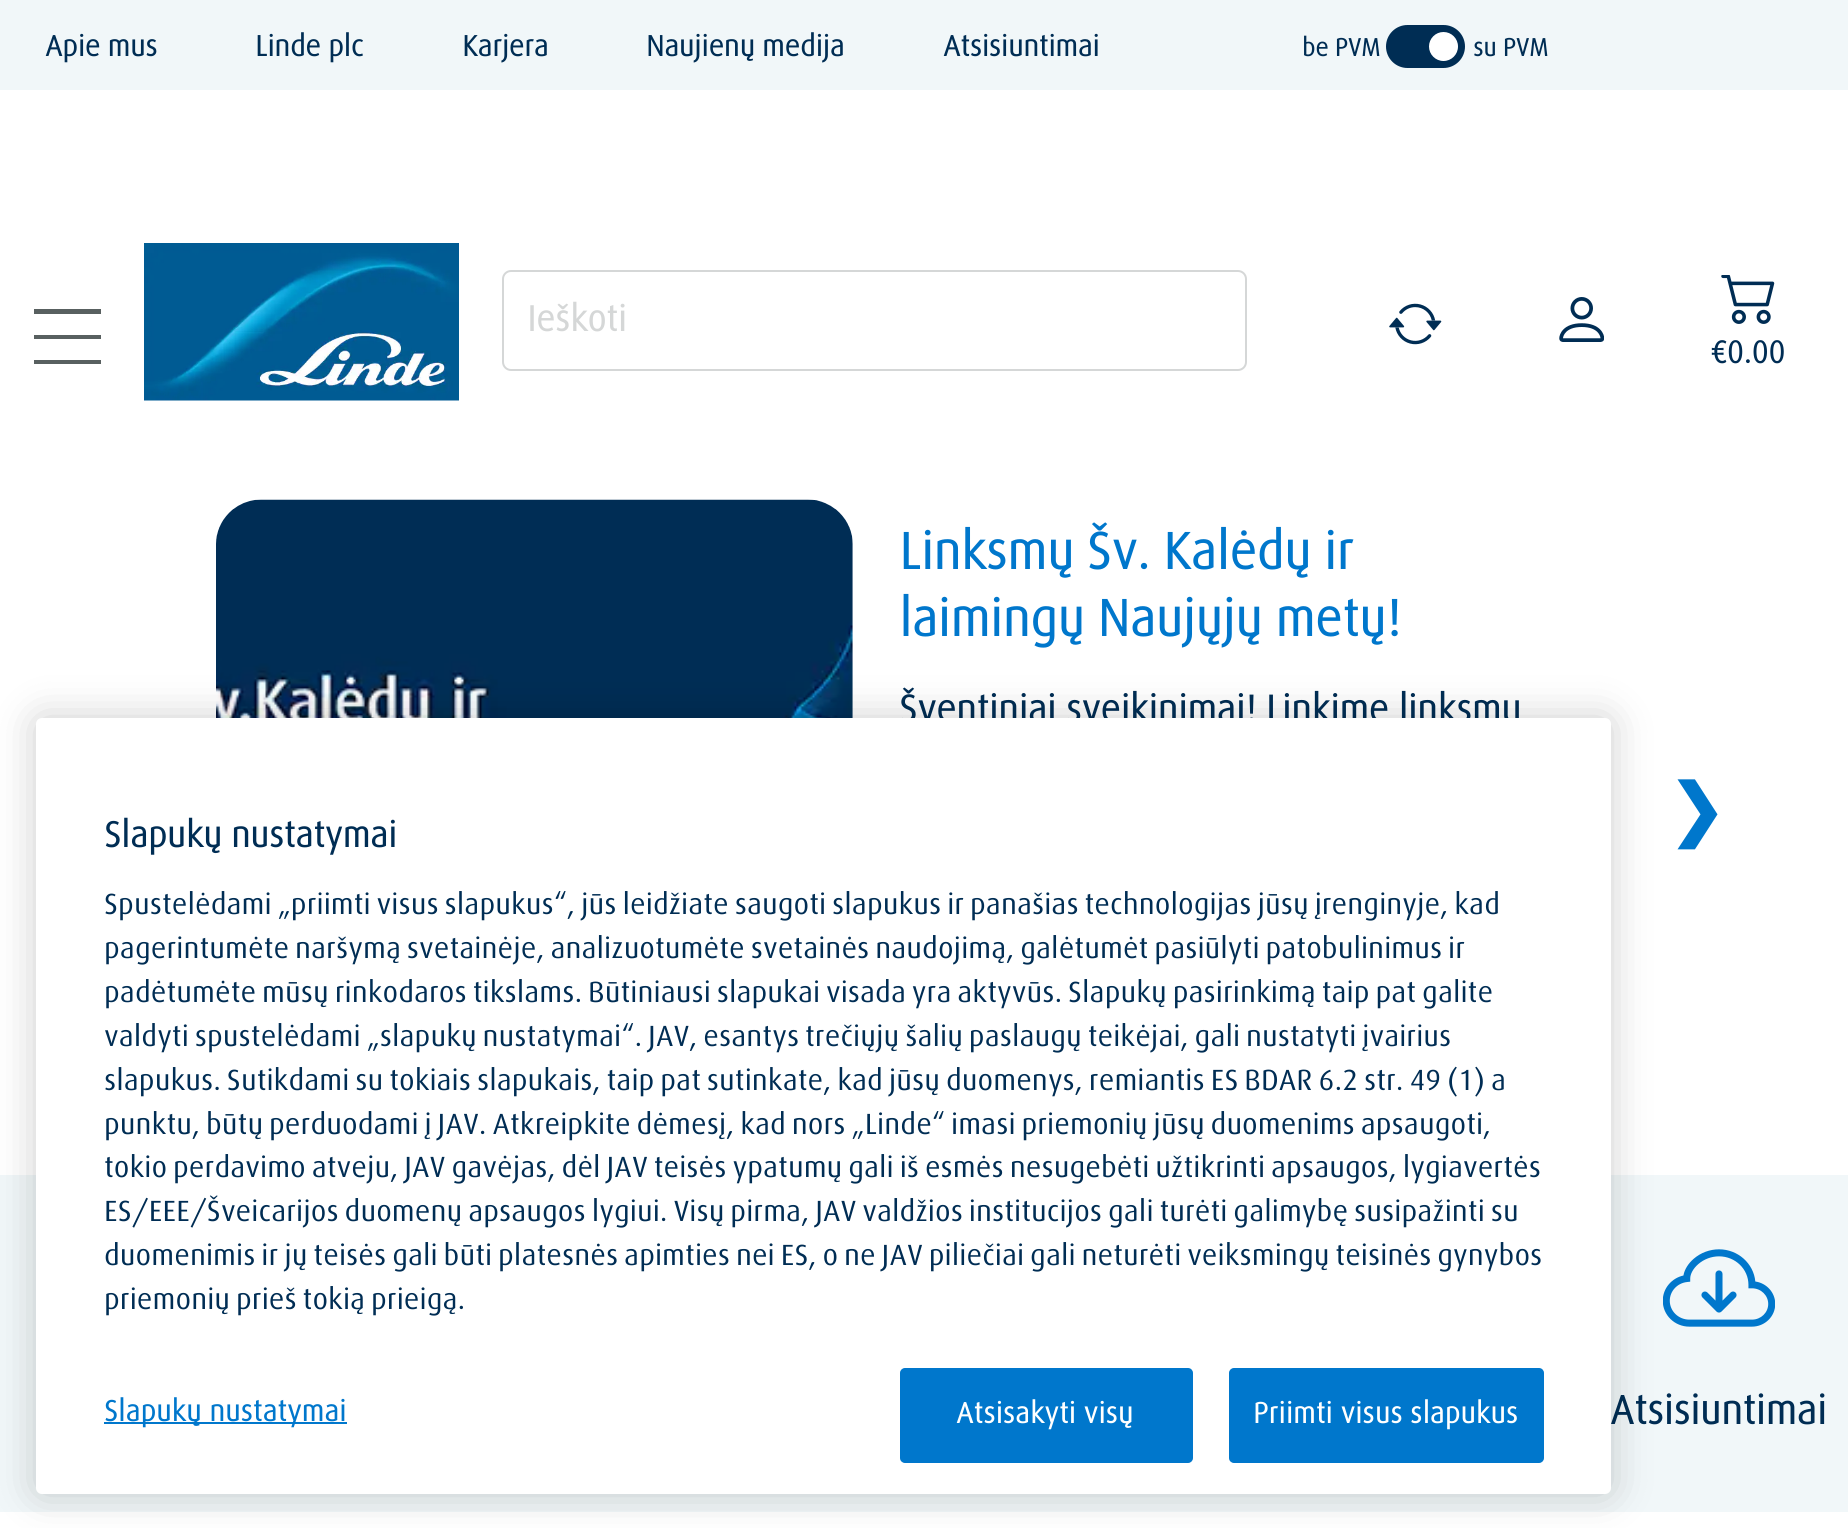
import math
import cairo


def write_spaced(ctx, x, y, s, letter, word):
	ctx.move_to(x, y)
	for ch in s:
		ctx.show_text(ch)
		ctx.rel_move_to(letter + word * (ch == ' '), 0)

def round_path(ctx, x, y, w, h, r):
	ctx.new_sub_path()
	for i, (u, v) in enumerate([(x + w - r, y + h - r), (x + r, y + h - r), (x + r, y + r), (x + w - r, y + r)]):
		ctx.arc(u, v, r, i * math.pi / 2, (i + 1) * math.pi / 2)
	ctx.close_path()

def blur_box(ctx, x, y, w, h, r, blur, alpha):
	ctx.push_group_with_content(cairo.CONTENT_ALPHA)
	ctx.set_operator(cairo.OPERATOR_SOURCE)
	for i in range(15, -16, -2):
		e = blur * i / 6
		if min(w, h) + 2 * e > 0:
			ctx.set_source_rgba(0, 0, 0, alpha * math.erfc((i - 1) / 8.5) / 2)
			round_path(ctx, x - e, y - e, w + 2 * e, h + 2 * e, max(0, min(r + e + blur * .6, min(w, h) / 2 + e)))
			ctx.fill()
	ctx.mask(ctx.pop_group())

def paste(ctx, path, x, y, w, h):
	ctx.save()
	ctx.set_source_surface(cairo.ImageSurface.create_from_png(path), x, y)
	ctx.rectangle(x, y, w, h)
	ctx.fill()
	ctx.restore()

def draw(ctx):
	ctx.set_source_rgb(1, 1, 1)
	ctx.paint()
	ctx.set_source_rgb(0.945, 0.965, 0.976)
	ctx.rectangle(0, 0, 1848, 90)
	ctx.fill()
	ctx.select_font_face('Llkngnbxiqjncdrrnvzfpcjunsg', cairo.FONT_SLANT_NORMAL, cairo.FONT_WEIGHT_BOLD)
	ctx.set_font_size(29.25)
	ctx.set_source_rgb(0, 0.176, 0.329)
	for x, y, s in [
		(45, 56, 'Apie mus'),
		(255, 56, 'Linde plc'),
		(462, 56, 'Karjera'),
		(646, 56, 'Naujienų medija'),
		(943, 56, 'Atsisiuntimai'),
	]:
		ctx.move_to(x, y)
		ctx.show_text(s)
	ctx.set_font_size(25)
	ctx.move_to(1302, 56)
	ctx.show_text('be PVM')
	round_path(ctx, 1388.5, 27.5, 74, 38, 19)
	ctx.fill_preserve()
	ctx.set_line_width(5)
	ctx.stroke()
	ctx.set_source_rgb(1, 1, 1)
	ctx.arc(1443.5, 46.5, 14.5, 0, 2 * math.pi)
	ctx.fill()
	ctx.set_source_rgb(0, 0.176, 0.329)
	ctx.move_to(1473, 56)
	ctx.show_text('su PVM')
	ctx.set_source_rgb(0.345, 0.376, 0.376)
	ctx.rectangle(34, 309, 67, 5)
	ctx.rectangle(34, 335, 67, 4)
	ctx.rectangle(34, 360, 67, 4)
	ctx.fill()
	paste(ctx, 'media/1.png', 144, 243, 315, 158)
	round_path(ctx, 503, 271, 743, 99, 8)
	ctx.set_source_rgb(0.835, 0.843, 0.843)
	ctx.set_line_width(2)
	ctx.stroke()
	ctx.set_font_size(36)
	ctx.move_to(527, 331)
	ctx.show_text('Ieškoti')
	paste(ctx, 'media/2.png', 1389, 303, 53, 42)
	paste(ctx, 'media/3.png', 1559, 297, 45, 45)
	paste(ctx, 'media/4.png', 1721, 275, 54, 49)
	ctx.set_font_size(31.5)
	ctx.set_source_rgb(0, 0.176, 0.329)
	ctx.move_to(1710, 363)
	ctx.show_text('€0.00')
	paste(ctx, 'media/5.png', 216, 499, 637, 219)
	ctx.set_font_size(51.75)
	ctx.set_source_rgb(0, 0.467, 0.8)
	ctx.move_to(899, 569)
	ctx.show_text('Linksmų Šv. Kalėdų ir')
	ctx.move_to(899, 636)
	ctx.show_text('laimingų Naujųjų metų!')
	ctx.set_font_size(38.25)
	ctx.set_source_rgb(0, 0.176, 0.329)
	ctx.move_to(899, 722)
	ctx.show_text('Šventiniai sveikinimai! Linkime linksmų')
	ctx.select_font_face('DejaVu Sans', cairo.FONT_SLANT_NORMAL, cairo.FONT_WEIGHT_BOLD)
	ctx.set_font_size(68)
	ctx.set_source_rgb(0, 0.467, 0.8)
	ctx.move_to(1668, 833)
	ctx.show_text('❯')
	ctx.set_source_rgb(0.945, 0.965, 0.976)
	ctx.rectangle(0, 1175, 1848, 337)
	ctx.fill()
	paste(ctx, 'media/6.png', 1663, 1249, 112, 78)
	ctx.select_font_face('Llkngnbxiqjncdrrnvzfpcjunsg', cairo.FONT_SLANT_NORMAL, cairo.FONT_WEIGHT_BOLD)
	ctx.set_font_size(40.5)
	ctx.set_source_rgb(0, 0.176, 0.329)
	ctx.move_to(1610, 1424)
	ctx.show_text('Atsisiuntimai')
	ctx.set_source_rgb(0, 0, 0)
	blur_box(ctx, 36, 718, 1575, 776, 6, 20, 0.2)
	ctx.set_source_rgb(1, 1, 1)
	round_path(ctx, 36, 718, 1575, 776, 6)
	ctx.fill()
	ctx.set_font_size(36)
	ctx.set_source_rgb(0, 0.176, 0.329)
	ctx.move_to(104, 847)
	ctx.show_text('Slapukų nustatymai')
	ctx.select_font_face('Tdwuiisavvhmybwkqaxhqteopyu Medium')
	ctx.set_font_size(29.25)
	for x, y, s in [
		(104, 914, 'Spustelėdami „priimti visus slapukus“, jūs leidžiate saugoti slapukus ir panašias technologijas jūsų įrenginyje, kad'),
		(104, 958, 'pagerintumėte naršymą svetainėje, analizuotumėte svetainės naudojimą, galėtumėt pasiūlyti patobulinimus ir'),
		(104, 1002, 'padėtumėte mūsų rinkodaros tikslams. Būtiniausi slapukai visada yra aktyvūs. Slapukų pasirinkimą taip pat galite'),
		(104, 1046, 'valdyti spustelėdami „slapukų nustatymai“. JAV, esantys trečiųjų šalių paslaugų teikėjai, gali nustatyti įvairius'),
		(104, 1090, 'slapukus. Sutikdami su tokiais slapukais, taip pat sutinkate, kad jūsų duomenys, remiantis ES BDAR 6.2 str. 49 (1) a'),
		(104, 1134, 'punktu, būtų perduodami į JAV. Atkreipkite dėmesį, kad nors „Linde“ imasi priemonių jūsų duomenims apsaugoti,'),
		(104, 1177, 'tokio perdavimo atveju, JAV gavėjas, dėl JAV teisės ypatumų gali iš esmės nesugebėti užtikrinti apsaugos, lygiavertės'),
		(104, 1221, 'ES/EEE/Šveicarijos duomenų apsaugos lygiui. Visų pirma, JAV valdžios institucijos gali turėti galimybę susipažinti su'),
		(104, 1265, 'duomenimis ir jų teisės gali būti platesnės apimties nei ES, o ne JAV piliečiai gali neturėti veiksmingų teisinės gynybos'),
		(104, 1309, 'priemonių prieš tokią prieigą.'),
	]:
		ctx.move_to(x, y)
		ctx.show_text(s)
	ctx.set_source_rgb(0, 0.467, 0.8)
	ctx.rectangle(104, 1422, 243, 2)
	ctx.fill()
	ctx.select_font_face('Llkngnbxiqjncdrrnvzfpcjunsg', cairo.FONT_SLANT_NORMAL, cairo.FONT_WEIGHT_BOLD)
	write_spaced(ctx, 104, 1421, 'Slapukų nustatymai', 0.25, 0)
	round_path(ctx, 901, 1369, 291, 93, 4)
	ctx.fill_preserve()
	ctx.stroke()
	ctx.set_source_rgb(1, 1, 1)
	write_spaced(ctx, 956, 1423, 'Atsisakyti visų', 0.25, 0)
	ctx.set_source_rgb(0, 0.467, 0.8)
	round_path(ctx, 1230, 1369, 313, 93, 4)
	ctx.fill_preserve()
	ctx.stroke()
	ctx.set_source_rgb(1, 1, 1)
	write_spaced(ctx, 1253, 1423, 'Priimti visus slapukus', 0.25, 0)


surface = cairo.ImageSurface(cairo.FORMAT_RGB24, 1848, 1528)
ctx = cairo.Context(surface)
options = cairo.FontOptions()
options.set_hint_metrics(cairo.HINT_METRICS_OFF)
options.set_hint_style(cairo.HINT_STYLE_NONE)
ctx.set_font_options(options)
ctx.set_miter_limit(4)
draw(ctx)
surface.write_to_png('image.png')
